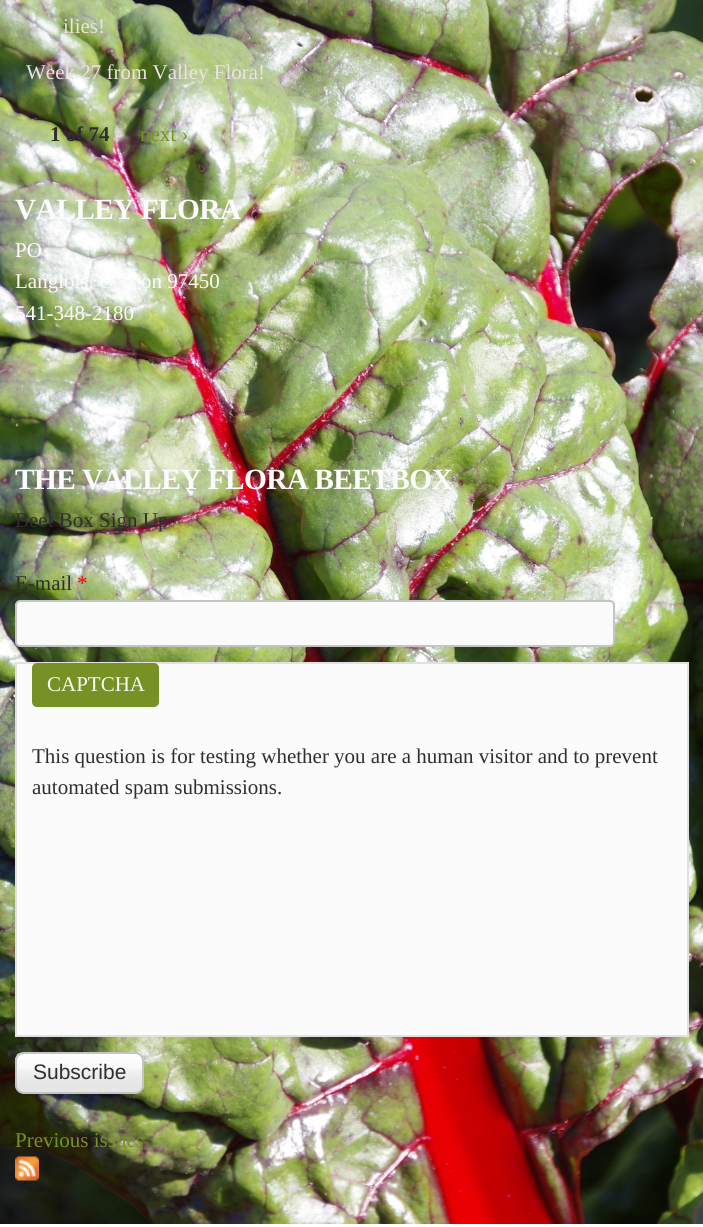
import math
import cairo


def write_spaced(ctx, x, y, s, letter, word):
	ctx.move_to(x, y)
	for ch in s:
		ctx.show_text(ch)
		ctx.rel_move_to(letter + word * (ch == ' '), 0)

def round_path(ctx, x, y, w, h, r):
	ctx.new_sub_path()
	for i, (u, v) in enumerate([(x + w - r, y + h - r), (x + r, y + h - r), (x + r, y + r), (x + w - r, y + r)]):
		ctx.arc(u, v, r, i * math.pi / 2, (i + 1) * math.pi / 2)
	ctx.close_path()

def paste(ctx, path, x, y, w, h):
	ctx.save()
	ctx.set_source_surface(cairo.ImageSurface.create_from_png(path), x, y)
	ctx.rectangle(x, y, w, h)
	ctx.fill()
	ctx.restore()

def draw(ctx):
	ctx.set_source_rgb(1, 1, 1)
	ctx.paint()
	paste(ctx, 'media/1.png', 0, 0, 703, 1224)
	ctx.select_font_face('Liberation Serif')
	ctx.set_font_size(21)
	ctx.set_source_rgb(0.918, 0.886, 0.886)
	ctx.move_to(63, 33)
	ctx.show_text('ilies!')
	ctx.move_to(26, 79)
	ctx.show_text('Week 27 from Valley Flora!')
	ctx.select_font_face('Liberation Serif', cairo.FONT_SLANT_NORMAL, cairo.FONT_WEIGHT_BOLD)
	ctx.set_source_rgb(0.18, 0.18, 0.18)
	ctx.move_to(50, 141)
	ctx.show_text('1 of 74')
	ctx.select_font_face('Liberation Serif')
	ctx.set_source_rgb(0.467, 0.569, 0.145)
	ctx.move_to(140, 141)
	ctx.show_text('next ›')
	ctx.select_font_face('Liberation Serif', cairo.FONT_SLANT_NORMAL, cairo.FONT_WEIGHT_BOLD)
	ctx.set_font_size(29.4)
	ctx.set_source_rgb(0.984, 0.984, 0.984)
	write_spaced(ctx, 15, 219, 'VALLEY FLORA', -0.6, 0)
	ctx.select_font_face('Liberation Serif')
	ctx.set_font_size(21)
	for x, y, s in [
		(15, 257, 'PO'),
		(15, 288, 'Langlois, O'),
		(141, 288, 'on 97450'),
		(15, 320, '541-348-2180'),
	]:
		ctx.move_to(x, y)
		ctx.show_text(s)
	ctx.select_font_face('Liberation Serif', cairo.FONT_SLANT_NORMAL, cairo.FONT_WEIGHT_BOLD)
	ctx.set_font_size(29.4)
	write_spaced(ctx, 15, 489, 'THE VALLEY FLORA BEETBOX', -0.6, 0)
	ctx.select_font_face('Liberation Serif')
	ctx.set_font_size(21)
	ctx.set_source_rgb(0.18, 0.18, 0.18)
	ctx.move_to(15, 527)
	ctx.show_text('Beet Box Sign Up')
	ctx.move_to(15, 590)
	ctx.show_text('E-mail')
	ctx.set_source_rgb(1, 0, 0)
	ctx.move_to(77, 590)
	ctx.show_text('*')
	ctx.set_source_rgb(0.98, 0.98, 0.98)
	round_path(ctx, 16, 601, 598, 45, 4)
	ctx.fill_preserve()
	ctx.set_source_rgb(0.769, 0.769, 0.769)
	ctx.stroke()
	ctx.set_source_rgb(0.984, 0.984, 0.984)
	ctx.rectangle(16, 663, 672, 373)
	ctx.fill_preserve()
	ctx.set_source_rgb(0.882, 0.882, 0.886)
	ctx.stroke()
	ctx.set_source_rgb(0.467, 0.569, 0.145)
	round_path(ctx, 32, 663, 127, 44, 5)
	ctx.fill()
	ctx.set_source_rgb(0.984, 0.984, 0.984)
	ctx.move_to(47, 691)
	ctx.show_text('CAPTCHA')
	ctx.set_source_rgb(0.18, 0.18, 0.18)
	ctx.move_to(32, 763)
	ctx.show_text('This question is for testing whether you are a human visitor and to prevent')
	ctx.move_to(32, 794)
	ctx.show_text('automated spam submissions.')
	paste(ctx, 'media/2.png', 15, 1053, 129, 41)
	round_path(ctx, 16, 1053, 127, 40, 8)
	ctx.set_source_rgb(0.769, 0.769, 0.769)
	ctx.stroke()
	ctx.select_font_face('Liberation Sans')
	ctx.set_source_rgb(0.18, 0.18, 0.18)
	ctx.move_to(33, 1079)
	ctx.show_text('Subscribe')
	ctx.select_font_face('Liberation Serif')
	ctx.set_source_rgb(0.467, 0.569, 0.145)
	ctx.move_to(15, 1147)
	ctx.show_text('Previous issues')
	paste(ctx, 'media/3.png', 15, 1156, 24, 25)


surface = cairo.ImageSurface(cairo.FORMAT_RGB24, 703, 1227)
ctx = cairo.Context(surface)
options = cairo.FontOptions()
options.set_hint_metrics(cairo.HINT_METRICS_OFF)
options.set_hint_style(cairo.HINT_STYLE_NONE)
ctx.set_font_options(options)
ctx.set_miter_limit(4)
draw(ctx)
surface.write_to_png('image.png')
